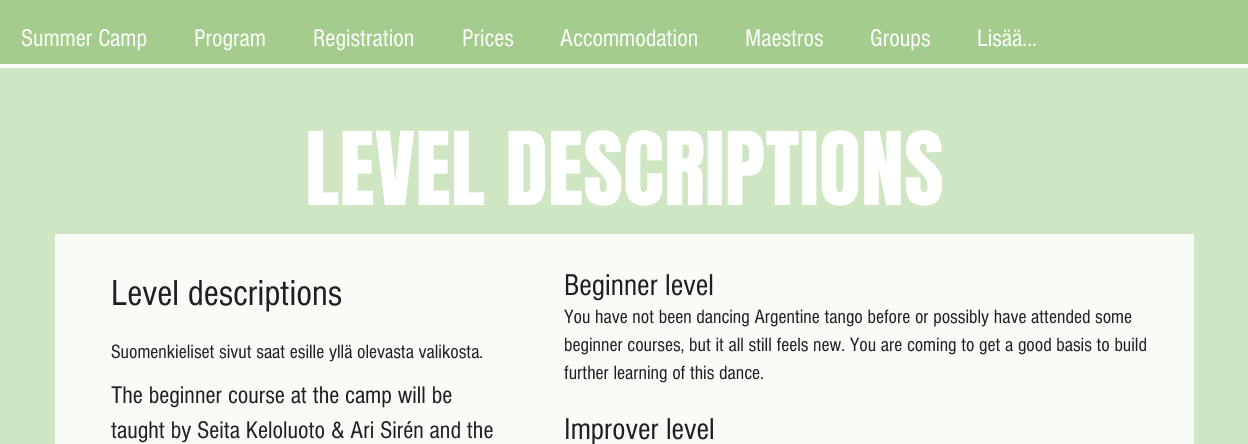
import math
import cairo


def draw(ctx):
	ctx.set_source_rgb(0.812, 0.902, 0.761)
	ctx.paint()
	ctx.set_source_rgb(0.643, 0.8, 0.553)
	ctx.rectangle(0, 0, 1248, 64)
	ctx.fill()
	ctx.set_source_rgb(1, 1, 1)
	ctx.rectangle(0, 64, 1248, 4)
	ctx.fill()
	ctx.select_font_face('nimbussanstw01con')
	ctx.set_font_size(25)
	for x, y, s in [
		(21, 46, 'Summer Camp'),
		(194, 46, 'Program'),
		(313, 46, 'Registration'),
		(462, 46, 'Prices'),
		(560, 46, 'Accommodation'),
		(745, 46, 'Maestros'),
		(870, 46, 'Groups'),
		(977, 46, 'Lisää...'),
	]:
		ctx.move_to(x, y)
		ctx.show_text(s)
	ctx.select_font_face('Anton')
	ctx.set_font_size(86.25)
	ctx.move_to(305, 205)
	ctx.show_text('LEVEL DESCRIPTIONS')
	ctx.set_source_rgb(0.973, 0.984, 0.965)
	ctx.rectangle(55, 234, 1139, 210)
	ctx.fill()
	ctx.select_font_face('nimbussanstw01con')
	ctx.set_font_size(37.5)
	ctx.set_source_rgb(0.122, 0.122, 0.122)
	ctx.move_to(111, 305)
	ctx.show_text('Level descriptions')
	ctx.set_font_size(31.25)
	ctx.move_to(564, 295)
	ctx.show_text('Beginner level')
	ctx.set_font_size(20)
	for x, y, s in [
		(564, 323, 'You have not been dancing Argentine tango before or possibly have attended some'),
		(564, 351, 'beginner courses, but it all still feels new. You are coming to get a good basis to build'),
		(564, 379, 'further learning of this dance.'),
	]:
		ctx.move_to(x, y)
		ctx.show_text(s)
	ctx.set_font_size(31.25)
	ctx.move_to(564, 439)
	ctx.show_text('Improver level')
	ctx.set_font_size(20)
	ctx.move_to(111, 358)
	ctx.show_text('Suomenkieliset sivut saat esille yllä olevasta valikosta.')
	ctx.set_font_size(25)
	ctx.move_to(111, 403)
	ctx.show_text('The beginner course at the camp will be')
	ctx.move_to(111, 438)
	ctx.show_text('taught by Seita Keloluoto & Ari Sirén and the')


surface = cairo.ImageSurface(cairo.FORMAT_RGB24, 1248, 444)
ctx = cairo.Context(surface)
options = cairo.FontOptions()
options.set_hint_metrics(cairo.HINT_METRICS_OFF)
options.set_hint_style(cairo.HINT_STYLE_NONE)
ctx.set_font_options(options)
ctx.set_miter_limit(4)
draw(ctx)
surface.write_to_png('image.png')
